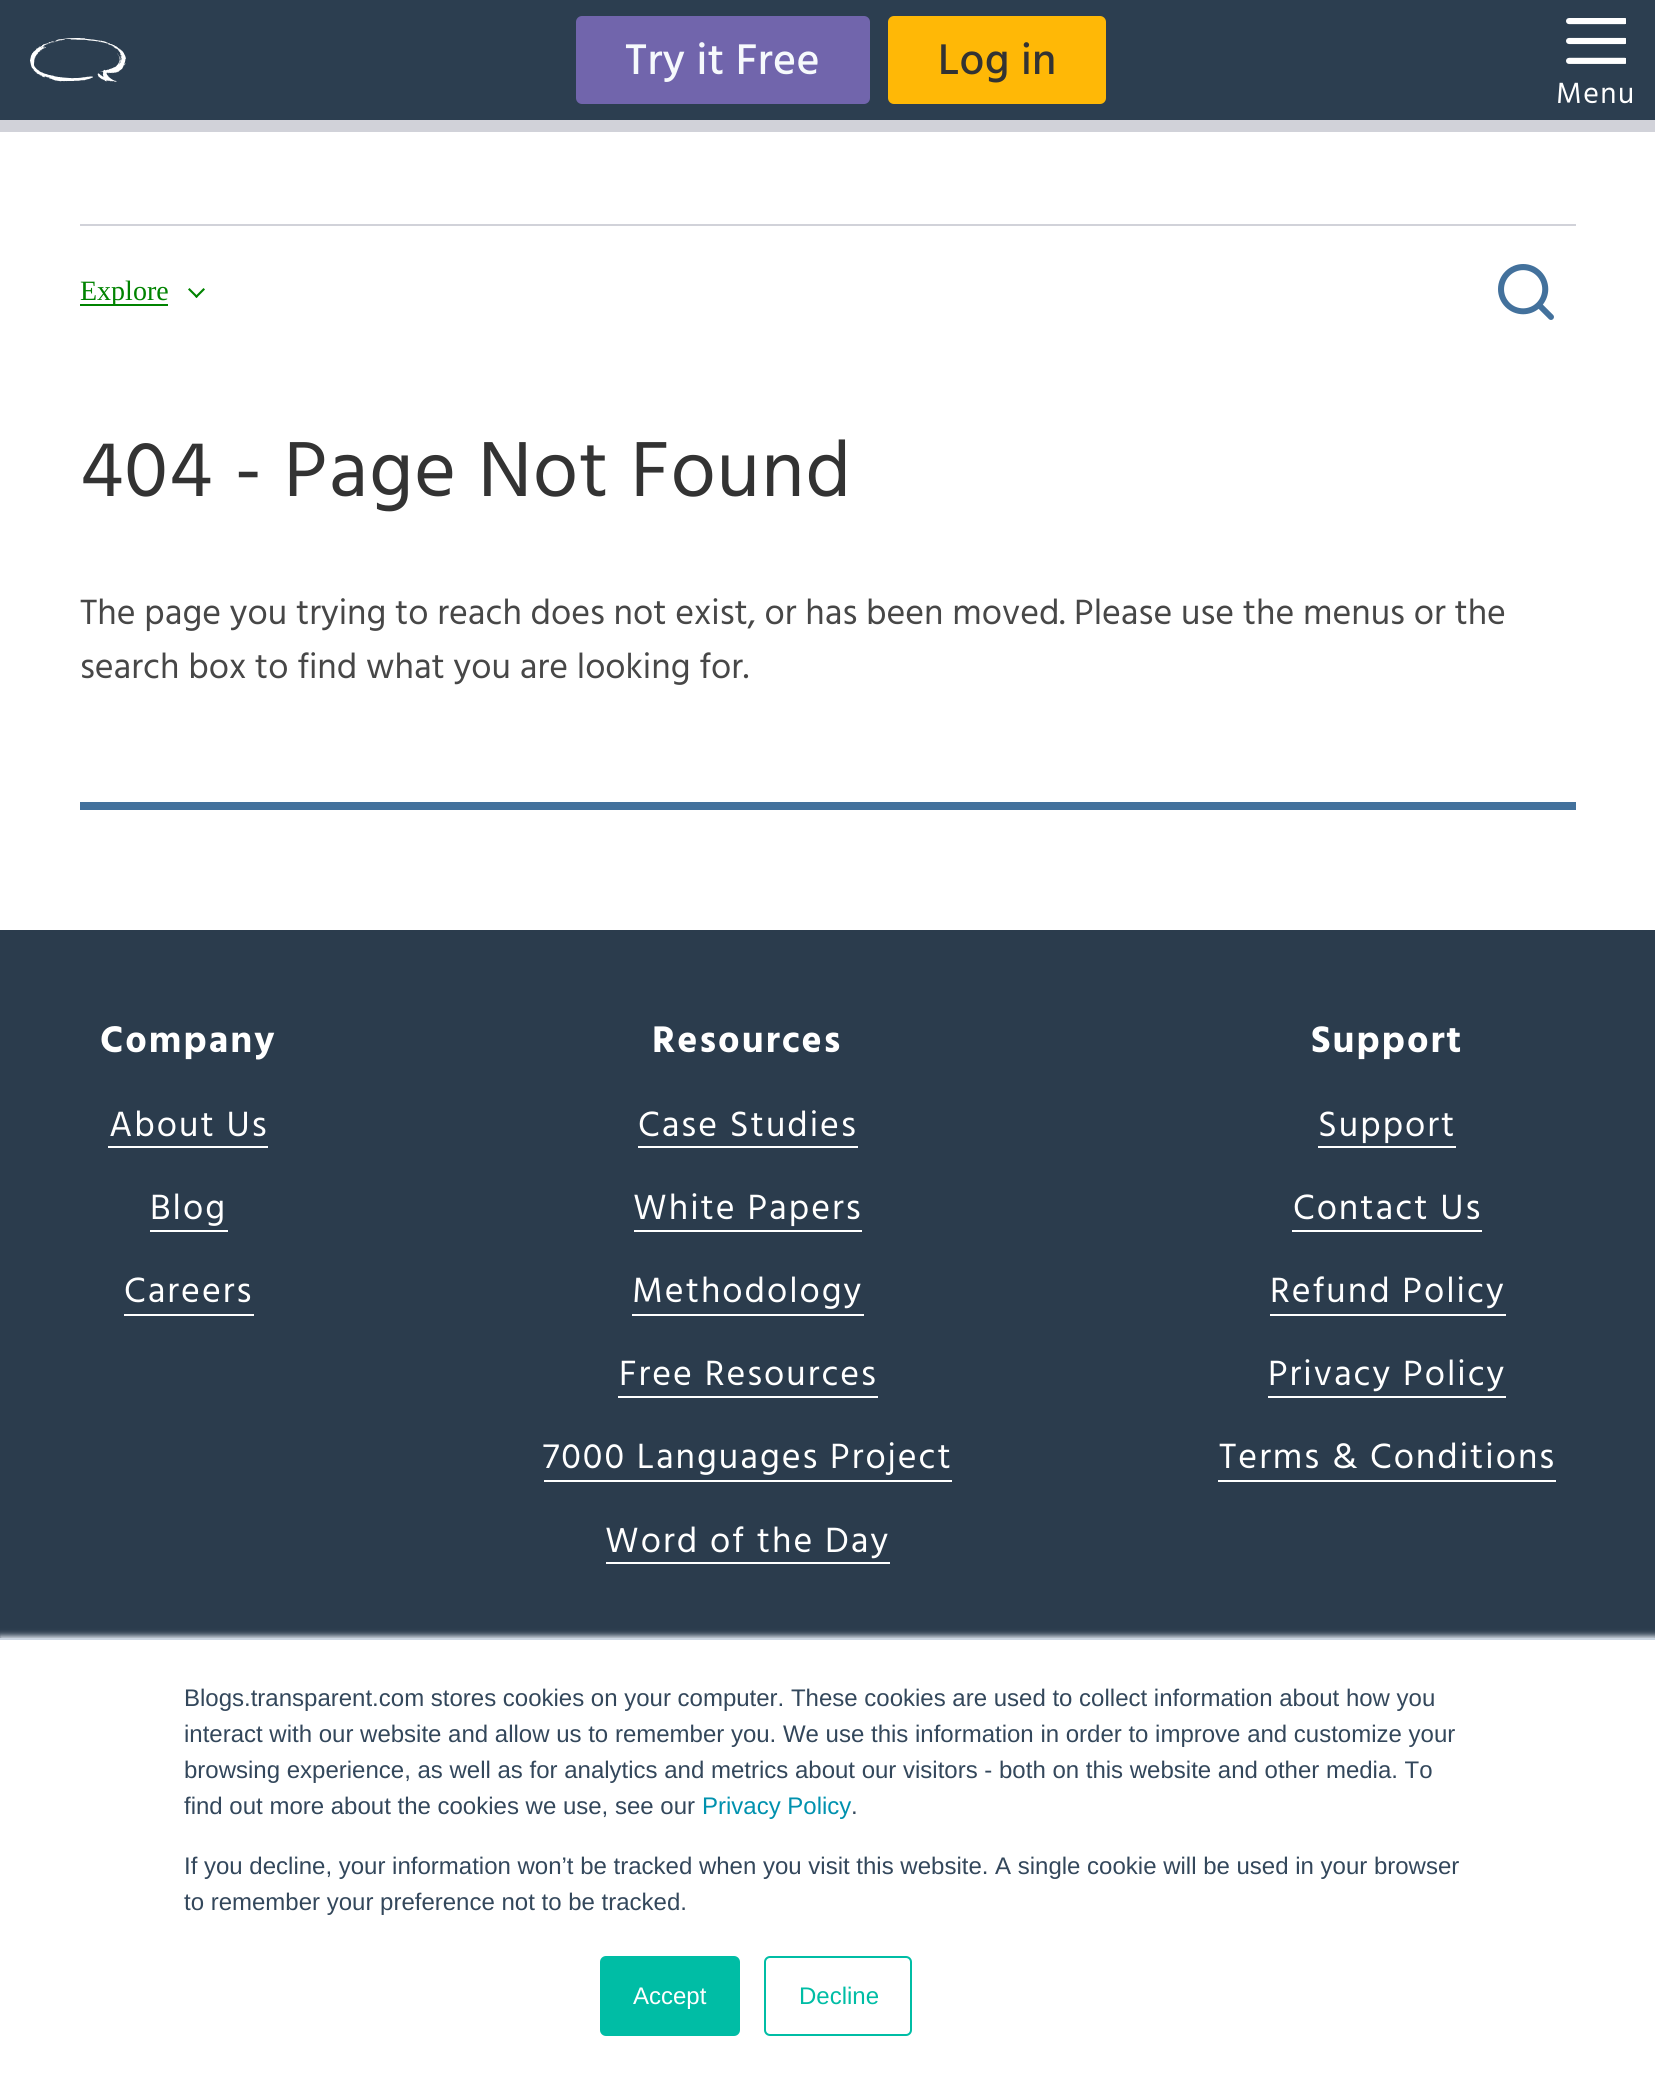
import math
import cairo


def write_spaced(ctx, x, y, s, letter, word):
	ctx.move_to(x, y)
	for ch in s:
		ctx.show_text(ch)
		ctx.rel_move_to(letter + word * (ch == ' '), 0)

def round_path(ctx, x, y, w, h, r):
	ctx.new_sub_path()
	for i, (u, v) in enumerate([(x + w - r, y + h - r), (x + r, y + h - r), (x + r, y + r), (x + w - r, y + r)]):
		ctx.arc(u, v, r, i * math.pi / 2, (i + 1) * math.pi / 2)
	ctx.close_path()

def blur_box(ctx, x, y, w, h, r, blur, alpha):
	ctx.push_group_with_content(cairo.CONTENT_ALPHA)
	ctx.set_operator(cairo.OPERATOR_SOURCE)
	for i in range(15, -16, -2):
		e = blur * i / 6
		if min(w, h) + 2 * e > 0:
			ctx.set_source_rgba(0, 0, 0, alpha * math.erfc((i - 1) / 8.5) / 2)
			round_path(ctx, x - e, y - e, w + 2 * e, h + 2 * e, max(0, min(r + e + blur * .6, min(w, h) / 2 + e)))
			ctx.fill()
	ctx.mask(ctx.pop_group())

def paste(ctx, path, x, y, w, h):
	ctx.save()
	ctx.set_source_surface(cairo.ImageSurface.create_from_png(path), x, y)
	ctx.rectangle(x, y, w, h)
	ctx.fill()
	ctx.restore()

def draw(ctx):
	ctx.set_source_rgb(1, 1, 1)
	ctx.paint()
	ctx.set_source_rgb(0.173, 0.243, 0.314)
	ctx.rectangle(0, 0, 1655, 120)
	ctx.fill()
	ctx.set_source_rgb(0.82, 0.824, 0.851)
	ctx.rectangle(0, 120, 1655, 12)
	ctx.fill()
	paste(ctx, 'media/1.png', 30, 38, 96, 44)
	ctx.set_source_rgb(0.443, 0.396, 0.675)
	round_path(ctx, 576, 16, 294, 88, 6)
	ctx.fill()
	ctx.select_font_face('Hind Medium')
	ctx.set_font_size(44)
	ctx.set_source_rgb(0.961, 0.976, 0.988)
	write_spaced(ctx, 625, 74, 'Try it Free', 0.4, 0)
	ctx.set_source_rgb(1, 0.722, 0.027)
	round_path(ctx, 888, 16, 218, 88, 6)
	ctx.fill()
	ctx.set_source_rgb(0.2, 0.2, 0.2)
	write_spaced(ctx, 938, 74, 'Log in', 0.4, 0)
	paste(ctx, 'media/2.png', 1566, 18, 60, 46)
	ctx.select_font_face('Hind')
	ctx.set_font_size(30)
	ctx.set_source_rgb(1, 1, 1)
	write_spaced(ctx, 1556, 103, 'Menu', 1.5, 0)
	ctx.set_source_rgb(0.82, 0.824, 0.851)
	ctx.rectangle(80, 224, 1496, 2)
	ctx.fill()
	ctx.set_source_rgb(0, 0.514, 0)
	ctx.rectangle(80, 304, 88, 2)
	ctx.fill()
	ctx.select_font_face('Liberation Serif')
	ctx.set_font_size(28)
	ctx.move_to(80, 300)
	ctx.show_text('Explore')
	ctx.new_path()
	ctx.move_to(203.5, 288)
	ctx.line_to(205, 289.5)
	ctx.line_to(196.5, 298)
	ctx.line_to(195, 296.5)
	ctx.close_path()
	ctx.fill()
	ctx.new_path()
	ctx.move_to(189.5, 288)
	ctx.line_to(198, 296.5)
	ctx.line_to(196.5, 298)
	ctx.line_to(188, 289.5)
	ctx.close_path()
	ctx.fill()
	paste(ctx, 'media/3.png', 1498, 264, 56, 56)
	ctx.select_font_face('Hind')
	ctx.set_font_size(80)
	ctx.set_source_rgb(0.2, 0.2, 0.2)
	write_spaced(ctx, 80, 496, '404 - Page Not Found', 1.2, 0)
	ctx.set_source_rgb(0.263, 0.443, 0.612)
	ctx.rectangle(80, 802, 1496, 8)
	ctx.fill()
	ctx.set_font_size(36)
	ctx.set_source_rgb(0.278, 0.278, 0.278)
	ctx.move_to(80, 624)
	ctx.show_text('The page you trying to reach does not exist, or has been moved. Please use the menus or the')
	ctx.move_to(80, 678)
	ctx.show_text('search box to find what you are looking for.')
	ctx.set_source_rgb(0.169, 0.235, 0.302)
	ctx.rectangle(0, 930, 1655, 708)
	ctx.fill()
	ctx.select_font_face('Hind', cairo.FONT_SLANT_NORMAL, cairo.FONT_WEIGHT_BOLD)
	ctx.set_font_size(38)
	ctx.set_source_rgb(1, 1, 1)
	write_spaced(ctx, 100, 1052, 'Company', 2, 0)
	ctx.rectangle(108, 1146, 160, 2)
	ctx.fill()
	ctx.select_font_face('Hind')
	ctx.set_font_size(36)
	write_spaced(ctx, 109, 1136, 'About Us', 2, 0)
	ctx.rectangle(150, 1230, 78, 2)
	ctx.fill()
	write_spaced(ctx, 150, 1219, 'Blog', 2, 0)
	ctx.rectangle(124, 1314, 130, 2)
	ctx.fill()
	write_spaced(ctx, 124, 1302, 'Careers', 2, 0)
	ctx.select_font_face('Hind', cairo.FONT_SLANT_NORMAL, cairo.FONT_WEIGHT_BOLD)
	ctx.set_font_size(38)
	write_spaced(ctx, 652, 1052, 'Resources', 2, 0)
	ctx.rectangle(638, 1146, 220, 2)
	ctx.fill()
	ctx.select_font_face('Hind')
	ctx.set_font_size(36)
	write_spaced(ctx, 638, 1136, 'Case Studies', 2, 0)
	ctx.rectangle(634, 1230, 228, 2)
	ctx.fill()
	write_spaced(ctx, 633, 1219, 'White Papers', 2, 0)
	ctx.rectangle(632, 1314, 232, 2)
	ctx.fill()
	write_spaced(ctx, 632, 1302, 'Methodology', 2, 0)
	ctx.rectangle(618, 1396, 260, 2)
	ctx.fill()
	write_spaced(ctx, 619, 1385, 'Free Resources', 2, 0)
	ctx.rectangle(544, 1480, 408, 2)
	ctx.fill()
	write_spaced(ctx, 543, 1468, '7000 Languages Project', 2, 0)
	ctx.rectangle(606, 1562, 284, 2)
	ctx.fill()
	write_spaced(ctx, 605, 1552, 'Word of the Day', 2, 0)
	ctx.select_font_face('Hind', cairo.FONT_SLANT_NORMAL, cairo.FONT_WEIGHT_BOLD)
	ctx.set_font_size(38)
	write_spaced(ctx, 1311, 1052, 'Support', 2, 0)
	ctx.rectangle(1318, 1146, 138, 2)
	ctx.fill()
	ctx.select_font_face('Hind')
	ctx.set_font_size(36)
	write_spaced(ctx, 1318, 1136, 'Support', 2, 0)
	ctx.rectangle(1292, 1230, 190, 2)
	ctx.fill()
	write_spaced(ctx, 1293, 1219, 'Contact Us', 2, 0)
	ctx.rectangle(1270, 1314, 236, 2)
	ctx.fill()
	write_spaced(ctx, 1270, 1302, 'Refund Policy', 2, 0)
	ctx.rectangle(1268, 1396, 238, 2)
	ctx.fill()
	write_spaced(ctx, 1268, 1385, 'Privacy Policy', 2, 0)
	ctx.rectangle(1218, 1480, 338, 2)
	ctx.fill()
	write_spaced(ctx, 1219, 1468, 'Terms & Conditions', 2, 0)
	ctx.set_source_rgb(0.918, 0.941, 0.965)
	blur_box(ctx, 0, 1636, 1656, 450, 0, 3, 1)
	ctx.set_source_rgb(1, 1, 1)
	ctx.rectangle(0, 1640, 1655, 448)
	ctx.fill()
	ctx.set_source_rgb(0.796, 0.839, 0.886)
	ctx.rectangle(0, 1638, 1655, 2)
	ctx.fill()
	ctx.select_font_face('Liberation Sans')
	ctx.set_font_size(24)
	ctx.set_source_rgb(0.2, 0.278, 0.357)
	for x, y, s in [
		(184, 1706, 'Blogs.transparent.com stores cookies on your computer. These cookies are used to collect information about how you'),
		(184, 1742, 'interact with our website and allow us to remember you. We use this information in order to improve and customize your'),
		(184, 1778, 'browsing experience, as well as for analytics and metrics about our visitors - both on this website and other media. To'),
		(184, 1814, 'find out more about the cookies we use, see our'),
	]:
		ctx.move_to(x, y)
		ctx.show_text(s)
	ctx.set_source_rgb(0, 0.569, 0.682)
	ctx.move_to(702, 1814)
	ctx.show_text('Privacy Policy')
	ctx.set_source_rgb(0.2, 0.278, 0.357)
	for x, y, s in [
		(851, 1814, '.'),
		(184, 1874, 'If you decline, your information won’t be tracked when you visit this website. A single cookie will be used in your browser'),
		(184, 1910, 'to remember your preference not to be tracked.'),
	]:
		ctx.move_to(x, y)
		ctx.show_text(s)
	ctx.set_source_rgb(0, 0.741, 0.647)
	round_path(ctx, 601, 1957, 138, 78, 5)
	ctx.fill_preserve()
	ctx.stroke()
	ctx.set_source_rgb(1, 1, 1)
	ctx.move_to(633, 2004)
	ctx.show_text('Accept')
	round_path(ctx, 765, 1957, 146, 78, 5)
	ctx.set_source_rgb(0, 0.741, 0.647)
	ctx.stroke()
	ctx.move_to(799, 2004)
	ctx.show_text('Decline')


surface = cairo.ImageSurface(cairo.FORMAT_RGB24, 1655, 2088)
ctx = cairo.Context(surface)
options = cairo.FontOptions()
options.set_hint_metrics(cairo.HINT_METRICS_OFF)
options.set_hint_style(cairo.HINT_STYLE_NONE)
ctx.set_font_options(options)
ctx.set_miter_limit(4)
draw(ctx)
surface.write_to_png('image.png')
